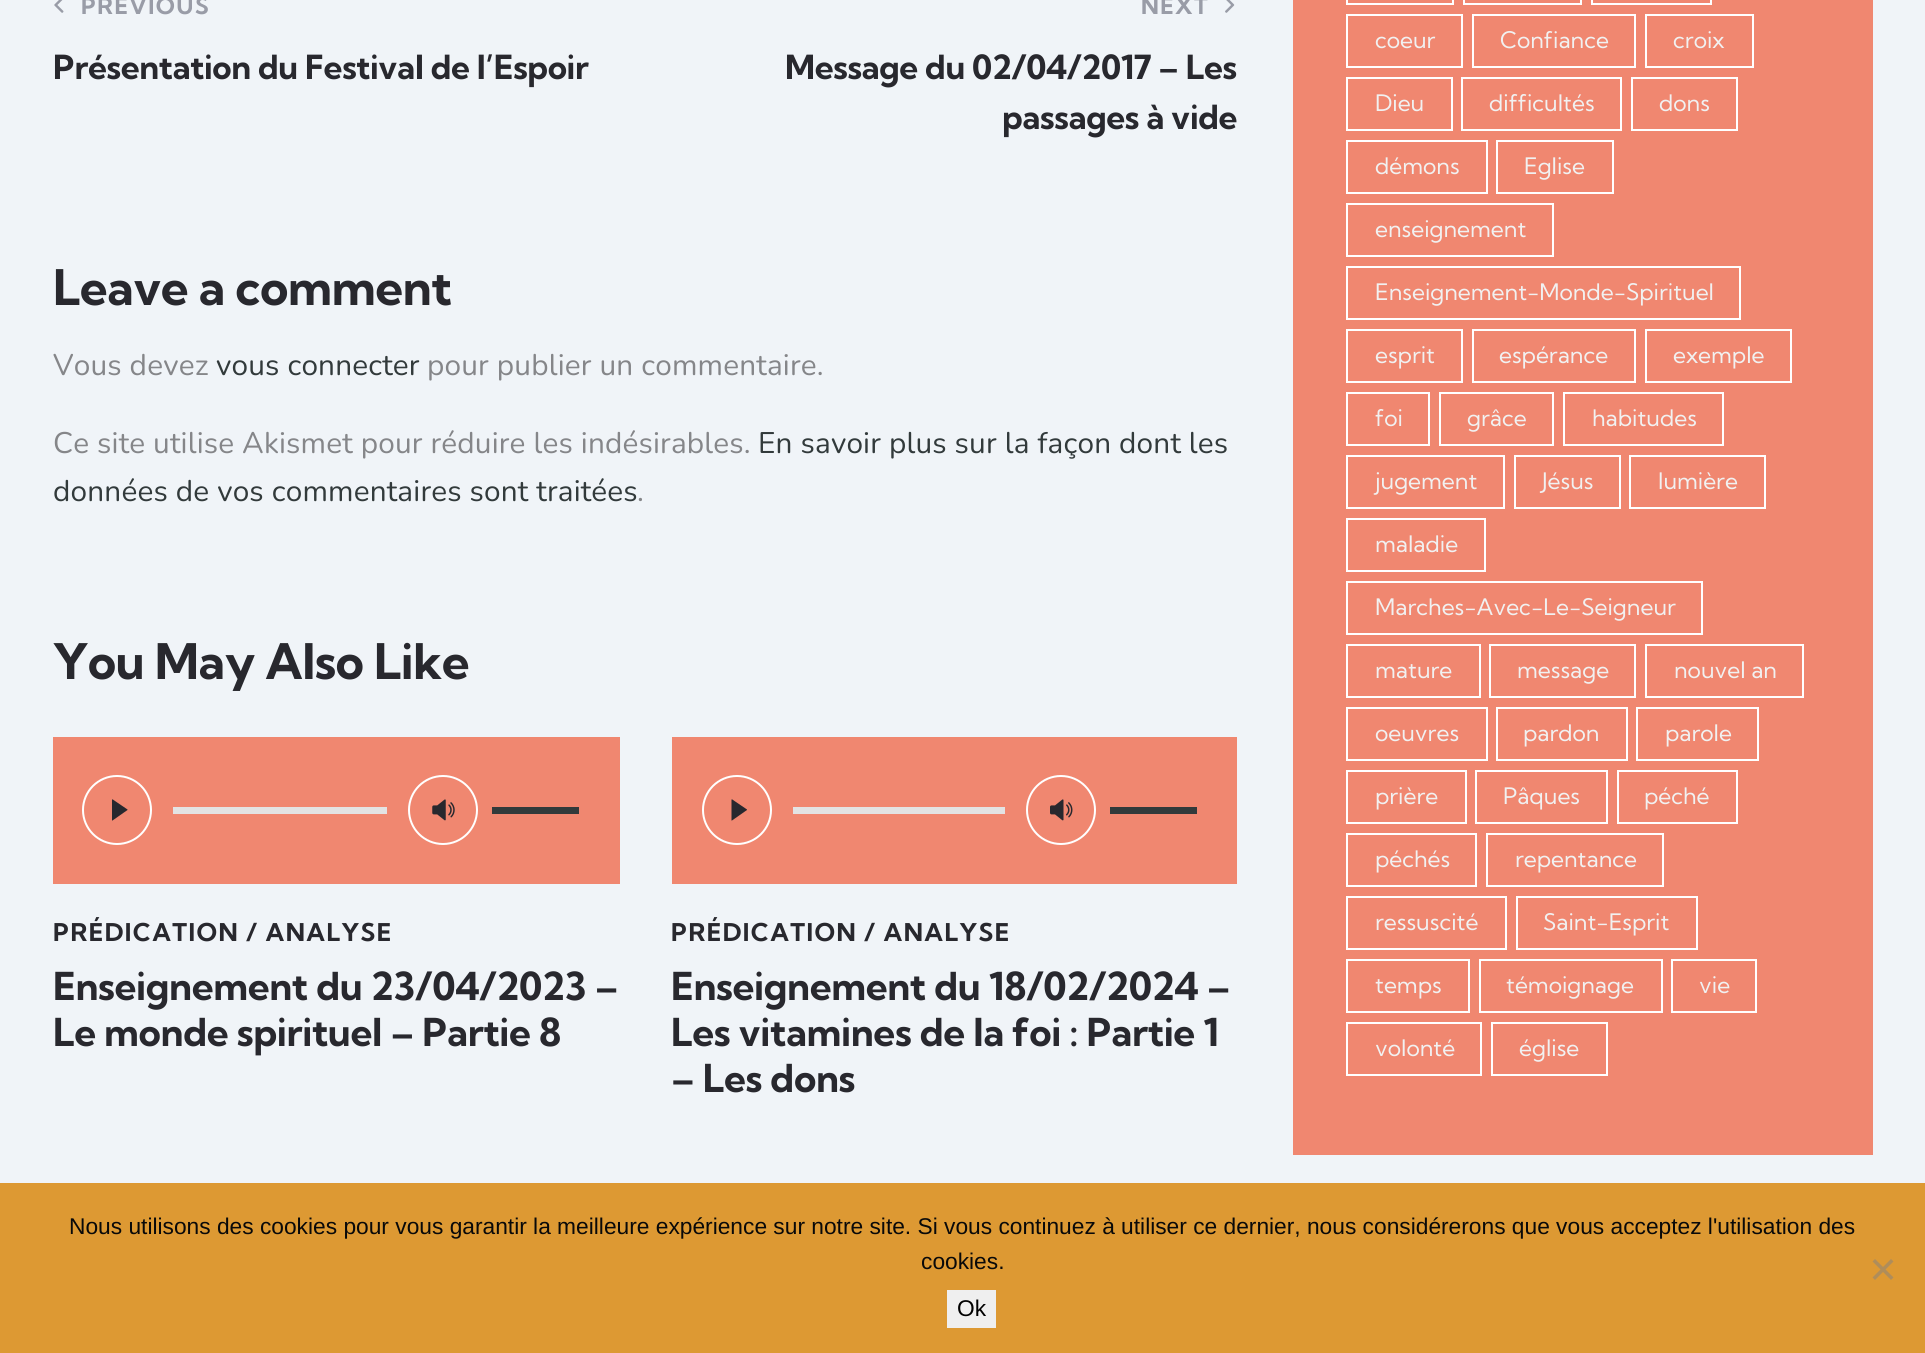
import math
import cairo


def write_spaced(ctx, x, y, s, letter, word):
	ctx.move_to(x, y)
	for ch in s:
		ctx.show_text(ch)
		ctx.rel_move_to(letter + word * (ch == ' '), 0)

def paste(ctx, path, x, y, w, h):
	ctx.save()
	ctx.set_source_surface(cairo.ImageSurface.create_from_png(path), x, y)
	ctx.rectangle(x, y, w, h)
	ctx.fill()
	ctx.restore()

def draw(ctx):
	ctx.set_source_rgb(0.941, 0.957, 0.969)
	ctx.paint()
	paste(ctx, 'media/1.png', 54, 0, 10, 13)
	ctx.select_font_face('Kumbh Sans', cairo.FONT_SLANT_NORMAL, cairo.FONT_WEIGHT_BOLD)
	ctx.set_font_size(22.75)
	ctx.set_source_rgb(0.6, 0.612, 0.655)
	write_spaced(ctx, 81, 14, 'PREVIOUS', 1.4, 0)
	ctx.set_font_size(33.25)
	ctx.set_source_rgb(0.157, 0.157, 0.18)
	write_spaced(ctx, 53, 79, 'Présentation du Festival de l’Espoir', -0.35, 0)
	ctx.set_font_size(22.75)
	ctx.set_source_rgb(0.6, 0.612, 0.655)
	write_spaced(ctx, 1141, 14, 'NEXT', 1.4, 0)
	paste(ctx, 'media/2.png', 1225, 0, 10, 13)
	ctx.set_font_size(33.25)
	ctx.set_source_rgb(0.157, 0.157, 0.18)
	write_spaced(ctx, 785, 79, 'Message du 02/04/2017 – Les', -0.35, 0)
	write_spaced(ctx, 1002, 129, 'passages à vide', -0.35, 0)
	ctx.set_font_size(49)
	write_spaced(ctx, 53, 305, 'Leave a comment', -0.6, 0)
	ctx.select_font_face('Nunito')
	ctx.set_font_size(29.75)
	ctx.set_source_rgb(0.522, 0.525, 0.537)
	write_spaced(ctx, 53, 375, 'Vous devez', 0.18, 0)
	ctx.set_source_rgb(0.196, 0.227, 0.231)
	write_spaced(ctx, 216, 375, 'vous connecter', 0.18, 0)
	ctx.set_source_rgb(0.522, 0.525, 0.537)
	write_spaced(ctx, 427, 375, 'pour publier un commentaire.', 0.18, 0)
	write_spaced(ctx, 53, 453, 'Ce site utilise Akismet pour réduire les indésirables.', 0.18, 0)
	ctx.set_source_rgb(0.196, 0.227, 0.231)
	write_spaced(ctx, 758, 453, 'En savoir plus sur la façon dont les', 0.18, 0)
	write_spaced(ctx, 53, 501, 'données de vos commentaires sont traitées', 0.18, 0)
	ctx.set_source_rgb(0.522, 0.525, 0.537)
	write_spaced(ctx, 637, 501, '.', 0.18, 0)
	ctx.select_font_face('Kumbh Sans', cairo.FONT_SLANT_NORMAL, cairo.FONT_WEIGHT_BOLD)
	ctx.set_font_size(49)
	ctx.set_source_rgb(0.157, 0.157, 0.18)
	write_spaced(ctx, 53, 679, 'You May Also Like', -0.6, 0)
	ctx.set_source_rgb(0.941, 0.529, 0.439)
	ctx.rectangle(53, 737, 567, 147)
	ctx.fill()
	ctx.arc(117, 810, 34, 0, 2 * math.pi)
	ctx.set_source_rgb(1, 1, 1)
	ctx.stroke()
	ctx.set_source_rgb(0.157, 0.157, 0.18)
	ctx.new_path()
	ctx.move_to(127.5, 809.5)
	ctx.line_to(115, 801)
	ctx.curve_to(111.5, 798.5, 112, 798.5, 112, 803)
	ctx.line_to(112, 820.5)
	ctx.line_to(112.5, 820.5)
	ctx.line_to(127.5, 810)
	ctx.close_path()
	ctx.fill()
	ctx.set_source_rgb(0.89, 0.89, 0.89)
	ctx.rectangle(173, 807, 214, 7)
	ctx.fill()
	ctx.arc(443, 810, 34, 0, 2 * math.pi)
	ctx.set_source_rgb(1, 1, 1)
	ctx.stroke()
	paste(ctx, 'media/3.png', 432, 799, 23, 22)
	ctx.set_source_rgb(0.196, 0.227, 0.231)
	ctx.rectangle(492, 807, 87, 7)
	ctx.fill()
	ctx.set_font_size(24.5)
	ctx.set_source_rgb(0.157, 0.157, 0.18)
	write_spaced(ctx, 53, 941, 'PRÉDICATION / ANALYSE', 1.4, 0)
	ctx.set_font_size(38.5)
	write_spaced(ctx, 53, 1000, 'Enseignement du 23/04/2023 –', -0.35, 0)
	write_spaced(ctx, 53, 1046, 'Le monde spirituel – Partie 8', -0.35, 0)
	ctx.set_source_rgb(0.941, 0.529, 0.439)
	ctx.rectangle(672, 737, 565, 147)
	ctx.fill()
	ctx.arc(737, 810, 34, 0, 2 * math.pi)
	ctx.set_source_rgb(1, 1, 1)
	ctx.stroke()
	ctx.set_source_rgb(0.157, 0.157, 0.18)
	ctx.new_path()
	ctx.move_to(747, 809.5)
	ctx.line_to(734.5, 801)
	ctx.curve_to(731, 798.5, 731.5, 798.5, 731.5, 803)
	ctx.line_to(731.5, 820.5)
	ctx.line_to(732, 820.5)
	ctx.line_to(747, 810)
	ctx.close_path()
	ctx.fill()
	ctx.set_source_rgb(0.89, 0.89, 0.89)
	ctx.rectangle(793, 807, 212, 7)
	ctx.fill()
	ctx.arc(1061, 810, 34, 0, 2 * math.pi)
	ctx.set_source_rgb(1, 1, 1)
	ctx.stroke()
	paste(ctx, 'media/4.png', 1050, 799, 23, 22)
	ctx.set_source_rgb(0.196, 0.227, 0.231)
	ctx.rectangle(1110, 807, 87, 7)
	ctx.fill()
	ctx.set_font_size(24.5)
	ctx.set_source_rgb(0.157, 0.157, 0.18)
	write_spaced(ctx, 671, 941, 'PRÉDICATION / ANALYSE', 1.4, 0)
	ctx.set_font_size(38.5)
	for x, y, s in [
		(671, 1000, 'Enseignement du 18/02/2024 –'),
		(671, 1046, 'Les vitamines de la foi : Partie 1'),
		(671, 1092, '– Les dons'),
	]:
		write_spaced(ctx, x, y, s, -0.35, 0)
	ctx.set_source_rgb(0.941, 0.529, 0.439)
	ctx.rectangle(1293, 0, 580, 1155)
	ctx.fill()
	ctx.rectangle(1347, -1, 106, 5)
	ctx.set_source_rgb(1, 1, 1)
	ctx.stroke()
	ctx.rectangle(1464, -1, 117, 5)
	ctx.stroke()
	ctx.rectangle(1592, -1, 119, 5)
	ctx.stroke()
	ctx.rectangle(1347, 15, 115, 52)
	ctx.stroke()
	ctx.select_font_face('Kumbh Sans')
	ctx.set_font_size(22.75)
	ctx.set_source_rgb(0.945, 0.945, 0.945)
	ctx.move_to(1375, 48)
	ctx.show_text('coeur')
	ctx.rectangle(1473, 15, 162, 52)
	ctx.set_source_rgb(1, 1, 1)
	ctx.stroke()
	ctx.set_source_rgb(0.945, 0.945, 0.945)
	ctx.move_to(1500, 48)
	ctx.show_text('Confiance')
	ctx.rectangle(1646, 15, 107, 52)
	ctx.set_source_rgb(1, 1, 1)
	ctx.stroke()
	ctx.set_source_rgb(0.945, 0.945, 0.945)
	ctx.move_to(1673, 48)
	ctx.show_text('croix')
	ctx.rectangle(1347, 78, 105, 52)
	ctx.set_source_rgb(1, 1, 1)
	ctx.stroke()
	ctx.set_source_rgb(0.945, 0.945, 0.945)
	ctx.move_to(1375, 111)
	ctx.show_text('Dieu')
	ctx.rectangle(1462, 78, 159, 52)
	ctx.set_source_rgb(1, 1, 1)
	ctx.stroke()
	ctx.set_source_rgb(0.945, 0.945, 0.945)
	ctx.move_to(1489, 111)
	ctx.show_text('difficultés')
	ctx.rectangle(1632, 78, 105, 52)
	ctx.set_source_rgb(1, 1, 1)
	ctx.stroke()
	ctx.set_source_rgb(0.945, 0.945, 0.945)
	ctx.move_to(1659, 111)
	ctx.show_text('dons')
	ctx.rectangle(1347, 141, 140, 52)
	ctx.set_source_rgb(1, 1, 1)
	ctx.stroke()
	ctx.set_source_rgb(0.945, 0.945, 0.945)
	ctx.move_to(1375, 174)
	ctx.show_text('démons')
	ctx.rectangle(1497, 141, 116, 52)
	ctx.set_source_rgb(1, 1, 1)
	ctx.stroke()
	ctx.set_source_rgb(0.945, 0.945, 0.945)
	ctx.move_to(1524, 174)
	ctx.show_text('Eglise')
	ctx.rectangle(1347, 204, 206, 52)
	ctx.set_source_rgb(1, 1, 1)
	ctx.stroke()
	ctx.set_source_rgb(0.945, 0.945, 0.945)
	ctx.move_to(1375, 237)
	ctx.show_text('enseignement')
	ctx.rectangle(1347, 267, 393, 52)
	ctx.set_source_rgb(1, 1, 1)
	ctx.stroke()
	ctx.set_source_rgb(0.945, 0.945, 0.945)
	ctx.move_to(1375, 300)
	ctx.show_text('Enseignement-Monde-Spirituel')
	ctx.rectangle(1347, 330, 115, 52)
	ctx.set_source_rgb(1, 1, 1)
	ctx.stroke()
	ctx.set_source_rgb(0.945, 0.945, 0.945)
	ctx.move_to(1375, 363)
	ctx.show_text('esprit')
	ctx.rectangle(1473, 330, 162, 52)
	ctx.set_source_rgb(1, 1, 1)
	ctx.stroke()
	ctx.set_source_rgb(0.945, 0.945, 0.945)
	ctx.move_to(1499, 363)
	ctx.show_text('espérance')
	ctx.rectangle(1646, 330, 145, 52)
	ctx.set_source_rgb(1, 1, 1)
	ctx.stroke()
	ctx.set_source_rgb(0.945, 0.945, 0.945)
	ctx.move_to(1673, 363)
	ctx.show_text('exemple')
	ctx.rectangle(1347, 393, 82, 52)
	ctx.set_source_rgb(1, 1, 1)
	ctx.stroke()
	ctx.set_source_rgb(0.945, 0.945, 0.945)
	ctx.move_to(1375, 426)
	ctx.show_text('foi')
	ctx.rectangle(1440, 393, 113, 52)
	ctx.set_source_rgb(1, 1, 1)
	ctx.stroke()
	ctx.set_source_rgb(0.945, 0.945, 0.945)
	ctx.move_to(1467, 426)
	ctx.show_text('grâce')
	ctx.rectangle(1564, 393, 159, 52)
	ctx.set_source_rgb(1, 1, 1)
	ctx.stroke()
	ctx.set_source_rgb(0.945, 0.945, 0.945)
	ctx.move_to(1592, 426)
	ctx.show_text('habitudes')
	ctx.rectangle(1347, 456, 157, 52)
	ctx.set_source_rgb(1, 1, 1)
	ctx.stroke()
	ctx.set_source_rgb(0.945, 0.945, 0.945)
	ctx.move_to(1375, 489)
	ctx.show_text('jugement')
	ctx.rectangle(1515, 456, 105, 52)
	ctx.set_source_rgb(1, 1, 1)
	ctx.stroke()
	ctx.set_source_rgb(0.945, 0.945, 0.945)
	ctx.move_to(1542, 489)
	ctx.show_text('Jésus')
	ctx.rectangle(1630, 456, 135, 52)
	ctx.set_source_rgb(1, 1, 1)
	ctx.stroke()
	ctx.set_source_rgb(0.945, 0.945, 0.945)
	ctx.move_to(1658, 489)
	ctx.show_text('lumière')
	ctx.rectangle(1347, 519, 138, 52)
	ctx.set_source_rgb(1, 1, 1)
	ctx.stroke()
	ctx.set_source_rgb(0.945, 0.945, 0.945)
	ctx.move_to(1375, 552)
	ctx.show_text('maladie')
	ctx.rectangle(1347, 582, 355, 52)
	ctx.set_source_rgb(1, 1, 1)
	ctx.stroke()
	ctx.set_source_rgb(0.945, 0.945, 0.945)
	ctx.move_to(1375, 615)
	ctx.show_text('Marches-Avec-Le-Seigneur')
	ctx.rectangle(1347, 645, 133, 52)
	ctx.set_source_rgb(1, 1, 1)
	ctx.stroke()
	ctx.set_source_rgb(0.945, 0.945, 0.945)
	ctx.move_to(1375, 678)
	ctx.show_text('mature')
	ctx.rectangle(1490, 645, 145, 52)
	ctx.set_source_rgb(1, 1, 1)
	ctx.stroke()
	ctx.set_source_rgb(0.945, 0.945, 0.945)
	ctx.move_to(1517, 678)
	ctx.show_text('message')
	ctx.rectangle(1646, 645, 157, 52)
	ctx.set_source_rgb(1, 1, 1)
	ctx.stroke()
	ctx.set_source_rgb(0.945, 0.945, 0.945)
	ctx.move_to(1674, 678)
	ctx.show_text('nouvel an')
	ctx.rectangle(1347, 708, 140, 52)
	ctx.set_source_rgb(1, 1, 1)
	ctx.stroke()
	ctx.set_source_rgb(0.945, 0.945, 0.945)
	ctx.move_to(1375, 741)
	ctx.show_text('oeuvres')
	ctx.rectangle(1497, 708, 130, 52)
	ctx.set_source_rgb(1, 1, 1)
	ctx.stroke()
	ctx.set_source_rgb(0.945, 0.945, 0.945)
	ctx.move_to(1523, 741)
	ctx.show_text('pardon')
	ctx.rectangle(1637, 708, 121, 52)
	ctx.set_source_rgb(1, 1, 1)
	ctx.stroke()
	ctx.set_source_rgb(0.945, 0.945, 0.945)
	ctx.move_to(1665, 741)
	ctx.show_text('parole')
	ctx.rectangle(1347, 771, 119, 52)
	ctx.set_source_rgb(1, 1, 1)
	ctx.stroke()
	ctx.set_source_rgb(0.945, 0.945, 0.945)
	ctx.move_to(1375, 804)
	ctx.show_text('prière')
	ctx.rectangle(1476, 771, 131, 52)
	ctx.set_source_rgb(1, 1, 1)
	ctx.stroke()
	ctx.set_source_rgb(0.945, 0.945, 0.945)
	ctx.move_to(1503, 804)
	ctx.show_text('Pâques')
	ctx.rectangle(1618, 771, 119, 52)
	ctx.set_source_rgb(1, 1, 1)
	ctx.stroke()
	ctx.set_source_rgb(0.945, 0.945, 0.945)
	ctx.move_to(1644, 804)
	ctx.show_text('péché')
	ctx.rectangle(1347, 834, 129, 52)
	ctx.set_source_rgb(1, 1, 1)
	ctx.stroke()
	ctx.set_source_rgb(0.945, 0.945, 0.945)
	ctx.move_to(1375, 867)
	ctx.show_text('péchés')
	ctx.rectangle(1487, 834, 176, 52)
	ctx.set_source_rgb(1, 1, 1)
	ctx.stroke()
	ctx.set_source_rgb(0.945, 0.945, 0.945)
	ctx.move_to(1515, 867)
	ctx.show_text('repentance')
	ctx.rectangle(1347, 897, 159, 52)
	ctx.set_source_rgb(1, 1, 1)
	ctx.stroke()
	ctx.set_source_rgb(0.945, 0.945, 0.945)
	ctx.move_to(1375, 930)
	ctx.show_text('ressuscité')
	ctx.rectangle(1517, 897, 180, 52)
	ctx.set_source_rgb(1, 1, 1)
	ctx.stroke()
	ctx.set_source_rgb(0.945, 0.945, 0.945)
	ctx.move_to(1543, 930)
	ctx.show_text('Saint-Esprit')
	ctx.rectangle(1347, 960, 122, 52)
	ctx.set_source_rgb(1, 1, 1)
	ctx.stroke()
	ctx.set_source_rgb(0.945, 0.945, 0.945)
	ctx.move_to(1375, 993)
	ctx.show_text('temps')
	ctx.rectangle(1480, 960, 182, 52)
	ctx.set_source_rgb(1, 1, 1)
	ctx.stroke()
	ctx.set_source_rgb(0.945, 0.945, 0.945)
	ctx.move_to(1506, 993)
	ctx.show_text('témoignage')
	ctx.rectangle(1672, 960, 84, 52)
	ctx.set_source_rgb(1, 1, 1)
	ctx.stroke()
	ctx.set_source_rgb(0.945, 0.945, 0.945)
	ctx.move_to(1699, 993)
	ctx.show_text('vie')
	ctx.rectangle(1347, 1023, 134, 52)
	ctx.set_source_rgb(1, 1, 1)
	ctx.stroke()
	ctx.set_source_rgb(0.945, 0.945, 0.945)
	ctx.move_to(1375, 1056)
	ctx.show_text('volonté')
	ctx.rectangle(1492, 1023, 115, 52)
	ctx.set_source_rgb(1, 1, 1)
	ctx.stroke()
	ctx.set_source_rgb(0.945, 0.945, 0.945)
	ctx.move_to(1519, 1056)
	ctx.show_text('église')
	ctx.set_source_rgb(0.867, 0.6, 0.2)
	ctx.rectangle(0, 1183, 1925, 170)
	ctx.fill()
	ctx.select_font_face('Liberation Sans')
	ctx.set_source_rgb(0.039, 0.039, 0.039)
	ctx.move_to(69, 1234)
	ctx.show_text('Nous utilisons des cookies pour vous garantir la meilleure expérience sur notre site. Si vous continuez à utiliser ce dernier, nous considérerons que vous acceptez l\'utilisation des')
	ctx.move_to(921, 1269)
	ctx.show_text('cookies.')
	ctx.set_source_rgb(0.686, 0.553, 0.353)
	ctx.new_path()
	ctx.move_to(1891, 1259)
	ctx.line_to(1893.5, 1261.5)
	ctx.line_to(1875, 1280)
	ctx.line_to(1872.5, 1277.5)
	ctx.close_path()
	ctx.fill()
	ctx.new_path()
	ctx.move_to(1872.5, 1261.5)
	ctx.line_to(1875, 1259)
	ctx.line_to(1893.5, 1277.5)
	ctx.line_to(1891, 1280)
	ctx.close_path()
	ctx.fill()
	ctx.set_source_rgb(0.937, 0.937, 0.937)
	ctx.rectangle(947, 1290, 49, 38)
	ctx.fill()
	ctx.set_source_rgb(0, 0, 0)
	ctx.move_to(957, 1316)
	ctx.show_text('Ok')


surface = cairo.ImageSurface(cairo.FORMAT_RGB24, 1925, 1353)
ctx = cairo.Context(surface)
options = cairo.FontOptions()
options.set_hint_metrics(cairo.HINT_METRICS_OFF)
options.set_hint_style(cairo.HINT_STYLE_NONE)
ctx.set_font_options(options)
ctx.set_miter_limit(4)
draw(ctx)
surface.write_to_png('image.png')
